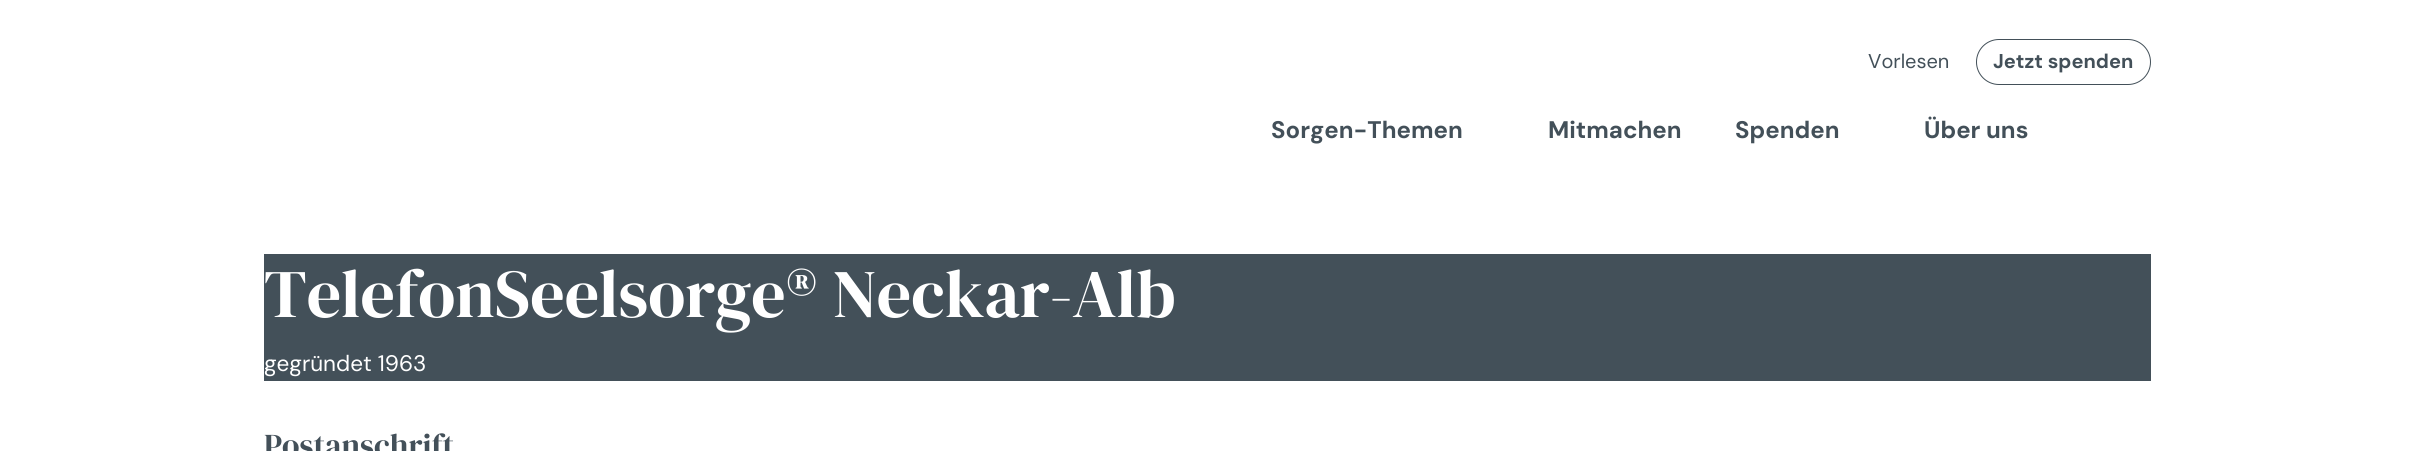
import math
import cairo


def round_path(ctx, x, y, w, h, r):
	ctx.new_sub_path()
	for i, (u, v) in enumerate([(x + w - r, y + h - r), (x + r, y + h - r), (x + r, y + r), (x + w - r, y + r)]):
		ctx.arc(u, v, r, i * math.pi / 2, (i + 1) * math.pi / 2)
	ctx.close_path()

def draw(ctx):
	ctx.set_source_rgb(1, 1, 1)
	ctx.paint()
	ctx.select_font_face('DM Sans')
	ctx.set_font_size(20)
	ctx.set_source_rgb(0.263, 0.314, 0.349)
	ctx.move_to(1868, 68)
	ctx.show_text('Vorlesen')
	round_path(ctx, 1976.5, 39.5, 174, 45, 22.5)
	ctx.set_line_width(1)
	ctx.stroke()
	ctx.select_font_face('DM Sans', cairo.FONT_SLANT_NORMAL, cairo.FONT_WEIGHT_BOLD)
	ctx.move_to(1993, 68)
	ctx.show_text('Jetzt spenden')
	ctx.set_font_size(24)
	for x, y, s in [
		(1271, 138, 'Sorgen-Themen'),
		(1548, 138, 'Mitmachen'),
		(1735, 138, 'Spenden'),
		(1924, 138, 'Über uns'),
	]:
		ctx.move_to(x, y)
		ctx.show_text(s)
	ctx.rectangle(264, 254, 1887, 127)
	ctx.fill()
	ctx.select_font_face('DM Serif Display')
	ctx.set_font_size(68)
	ctx.set_source_rgb(1, 1, 1)
	ctx.move_to(264, 317)
	ctx.show_text('TelefonSeelsorge® Neckar-Alb')
	ctx.select_font_face('DM Sans')
	ctx.set_font_size(22.5)
	ctx.move_to(264, 371)
	ctx.show_text('gegründet 1963')
	ctx.select_font_face('DM Serif Display')
	ctx.set_font_size(32)
	ctx.set_source_rgb(0.263, 0.314, 0.349)
	ctx.move_to(264, 456)
	ctx.show_text('Postanschrift')


surface = cairo.ImageSurface(cairo.FORMAT_RGB24, 2415, 451)
ctx = cairo.Context(surface)
options = cairo.FontOptions()
options.set_hint_metrics(cairo.HINT_METRICS_OFF)
options.set_hint_style(cairo.HINT_STYLE_NONE)
ctx.set_font_options(options)
ctx.set_miter_limit(4)
draw(ctx)
surface.write_to_png('image.png')
